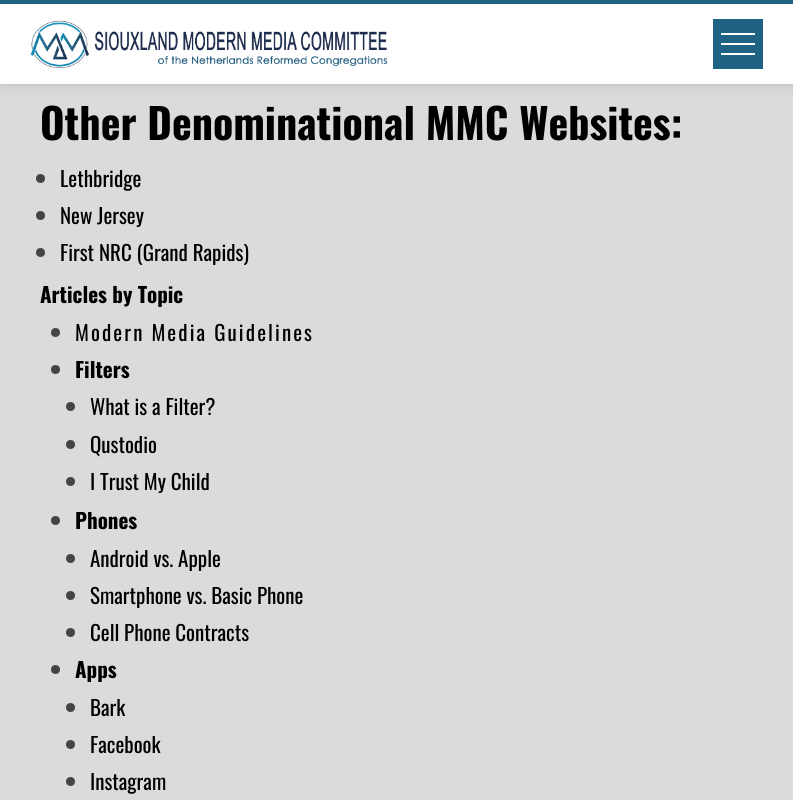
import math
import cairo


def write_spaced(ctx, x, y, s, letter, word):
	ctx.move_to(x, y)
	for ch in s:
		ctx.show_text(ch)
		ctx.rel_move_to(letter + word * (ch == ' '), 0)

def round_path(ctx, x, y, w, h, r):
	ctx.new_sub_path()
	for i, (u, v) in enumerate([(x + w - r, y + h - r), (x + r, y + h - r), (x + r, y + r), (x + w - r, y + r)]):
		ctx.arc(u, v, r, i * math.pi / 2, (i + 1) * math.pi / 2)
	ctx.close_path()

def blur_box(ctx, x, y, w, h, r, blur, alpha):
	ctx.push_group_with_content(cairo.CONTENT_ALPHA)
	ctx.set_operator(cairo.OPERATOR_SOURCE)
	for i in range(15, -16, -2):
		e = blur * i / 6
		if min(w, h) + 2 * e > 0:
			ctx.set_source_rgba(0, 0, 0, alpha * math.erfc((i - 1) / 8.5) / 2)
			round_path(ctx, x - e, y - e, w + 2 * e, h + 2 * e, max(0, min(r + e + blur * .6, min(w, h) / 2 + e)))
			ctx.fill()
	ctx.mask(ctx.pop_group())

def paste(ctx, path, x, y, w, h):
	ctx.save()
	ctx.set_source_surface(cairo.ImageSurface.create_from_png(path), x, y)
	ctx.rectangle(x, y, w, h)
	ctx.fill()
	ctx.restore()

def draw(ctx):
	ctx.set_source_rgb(0.859, 0.859, 0.859)
	ctx.paint()
	ctx.set_source_rgb(0, 0, 0)
	blur_box(ctx, 0, 3, 793, 84, 0, 5, 0.1)
	ctx.set_source_rgb(1, 1, 1)
	ctx.rectangle(0, 4, 793, 80)
	ctx.fill()
	ctx.set_source_rgb(0.125, 0.384, 0.514)
	ctx.rectangle(0, 0, 793, 4)
	ctx.fill()
	paste(ctx, 'media/1.png', 30, 20, 358, 48)
	ctx.rectangle(713, 19, 50, 50)
	ctx.fill()
	ctx.set_source_rgb(1, 1, 1)
	ctx.rectangle(721, 33, 34, 2)
	ctx.rectangle(721, 53, 34, 2)
	ctx.rectangle(721, 43, 34, 2)
	ctx.fill()
	ctx.select_font_face('Oswald', cairo.FONT_SLANT_NORMAL, cairo.FONT_WEIGHT_BOLD)
	ctx.set_font_size(42)
	ctx.set_source_rgb(0, 0, 0)
	ctx.move_to(40, 140)
	ctx.show_text('Other Denominational MMC Websites:')
	ctx.set_source_rgb(0.267, 0.267, 0.267)
	ctx.new_path()
	ctx.arc(40.5, 178.5, 4.5, 0, 2 * math.pi)
	ctx.fill()
	ctx.select_font_face('Oswald')
	ctx.set_font_size(21)
	ctx.set_source_rgb(0, 0, 0)
	ctx.move_to(60, 187)
	ctx.show_text('Lethbridge')
	ctx.set_source_rgb(0.267, 0.267, 0.267)
	ctx.new_path()
	ctx.arc(40.5, 215.5, 4.5, 0, 2 * math.pi)
	ctx.fill()
	ctx.set_source_rgb(0, 0, 0)
	ctx.move_to(60, 224)
	ctx.show_text('New Jersey')
	ctx.set_source_rgb(0.267, 0.267, 0.267)
	ctx.new_path()
	ctx.arc(40.5, 252.5, 4.5, 0, 2 * math.pi)
	ctx.fill()
	ctx.set_source_rgb(0, 0, 0)
	ctx.move_to(60, 261)
	ctx.show_text('First NRC (Grand Rapids)')
	ctx.select_font_face('Oswald', cairo.FONT_SLANT_NORMAL, cairo.FONT_WEIGHT_BOLD)
	ctx.move_to(40, 303)
	ctx.show_text('Articles by Topic')
	ctx.set_source_rgb(0.267, 0.267, 0.267)
	ctx.new_path()
	ctx.arc(55.5, 332.5, 4.5, 0, 2 * math.pi)
	ctx.fill()
	ctx.select_font_face('Oswald')
	ctx.set_source_rgb(0, 0, 0)
	write_spaced(ctx, 75, 341, 'Modern Media Guideline', 2.1, 0)
	ctx.move_to(304, 341)
	ctx.show_text('s')
	ctx.set_source_rgb(0.267, 0.267, 0.267)
	ctx.new_path()
	ctx.arc(55.5, 369.5, 4.5, 0, 2 * math.pi)
	ctx.fill()
	ctx.select_font_face('Oswald', cairo.FONT_SLANT_NORMAL, cairo.FONT_WEIGHT_BOLD)
	ctx.set_source_rgb(0, 0, 0)
	ctx.move_to(75, 378)
	ctx.show_text('Filters')
	ctx.set_source_rgb(0.267, 0.267, 0.267)
	ctx.new_path()
	ctx.arc(70.5, 406.5, 4.5, 0, 2 * math.pi)
	ctx.fill()
	ctx.select_font_face('Oswald')
	ctx.set_source_rgb(0, 0, 0)
	ctx.move_to(90, 415)
	ctx.show_text('What is a Filter?')
	ctx.set_source_rgb(0.267, 0.267, 0.267)
	ctx.new_path()
	ctx.arc(70.5, 444.5, 4.5, 0, 2 * math.pi)
	ctx.fill()
	ctx.set_source_rgb(0, 0, 0)
	ctx.move_to(90, 453)
	ctx.show_text('Qustodio')
	ctx.set_source_rgb(0.267, 0.267, 0.267)
	ctx.new_path()
	ctx.arc(70.5, 481.5, 4.5, 0, 2 * math.pi)
	ctx.fill()
	ctx.set_source_rgb(0, 0, 0)
	ctx.move_to(90, 490)
	ctx.show_text('I Trust My Child')
	ctx.set_source_rgb(0.267, 0.267, 0.267)
	ctx.new_path()
	ctx.arc(55.5, 520.5, 4.5, 0, 2 * math.pi)
	ctx.fill()
	ctx.select_font_face('Oswald', cairo.FONT_SLANT_NORMAL, cairo.FONT_WEIGHT_BOLD)
	ctx.set_source_rgb(0, 0, 0)
	ctx.move_to(75, 529)
	ctx.show_text('Phones')
	ctx.set_source_rgb(0.267, 0.267, 0.267)
	ctx.new_path()
	ctx.arc(70.5, 558.5, 4.5, 0, 2 * math.pi)
	ctx.fill()
	ctx.select_font_face('Oswald')
	ctx.set_source_rgb(0, 0, 0)
	ctx.move_to(90, 567)
	ctx.show_text('Android vs. Apple')
	ctx.set_source_rgb(0.267, 0.267, 0.267)
	ctx.new_path()
	ctx.arc(70.5, 595.5, 4.5, 0, 2 * math.pi)
	ctx.fill()
	ctx.set_source_rgb(0, 0, 0)
	ctx.move_to(90, 604)
	ctx.show_text('Smartphone vs. Basic Phone')
	ctx.set_source_rgb(0.267, 0.267, 0.267)
	ctx.new_path()
	ctx.arc(70.5, 632.5, 4.5, 0, 2 * math.pi)
	ctx.fill()
	ctx.set_source_rgb(0, 0, 0)
	ctx.move_to(90, 641)
	ctx.show_text('Cell Phone Contracts')
	ctx.set_source_rgb(0.267, 0.267, 0.267)
	ctx.new_path()
	ctx.arc(55.5, 669.5, 4.5, 0, 2 * math.pi)
	ctx.fill()
	ctx.select_font_face('Oswald', cairo.FONT_SLANT_NORMAL, cairo.FONT_WEIGHT_BOLD)
	ctx.set_source_rgb(0, 0, 0)
	ctx.move_to(75, 678)
	ctx.show_text('Apps')
	ctx.set_source_rgb(0.267, 0.267, 0.267)
	ctx.new_path()
	ctx.arc(70.5, 707.5, 4.5, 0, 2 * math.pi)
	ctx.fill()
	ctx.select_font_face('Oswald')
	ctx.set_source_rgb(0, 0, 0)
	ctx.move_to(90, 716)
	ctx.show_text('Bark')
	ctx.set_source_rgb(0.267, 0.267, 0.267)
	ctx.new_path()
	ctx.arc(70.5, 744.5, 4.5, 0, 2 * math.pi)
	ctx.fill()
	ctx.set_source_rgb(0, 0, 0)
	ctx.move_to(90, 753)
	ctx.show_text('Facebook')
	ctx.set_source_rgb(0.267, 0.267, 0.267)
	ctx.new_path()
	ctx.arc(70.5, 781.5, 4.5, 0, 2 * math.pi)
	ctx.fill()
	ctx.set_source_rgb(0, 0, 0)
	ctx.move_to(90, 790)
	ctx.show_text('Instagram')


surface = cairo.ImageSurface(cairo.FORMAT_RGB24, 793, 800)
ctx = cairo.Context(surface)
options = cairo.FontOptions()
options.set_hint_metrics(cairo.HINT_METRICS_OFF)
options.set_hint_style(cairo.HINT_STYLE_NONE)
ctx.set_font_options(options)
ctx.set_miter_limit(4)
draw(ctx)
surface.write_to_png('image.png')
